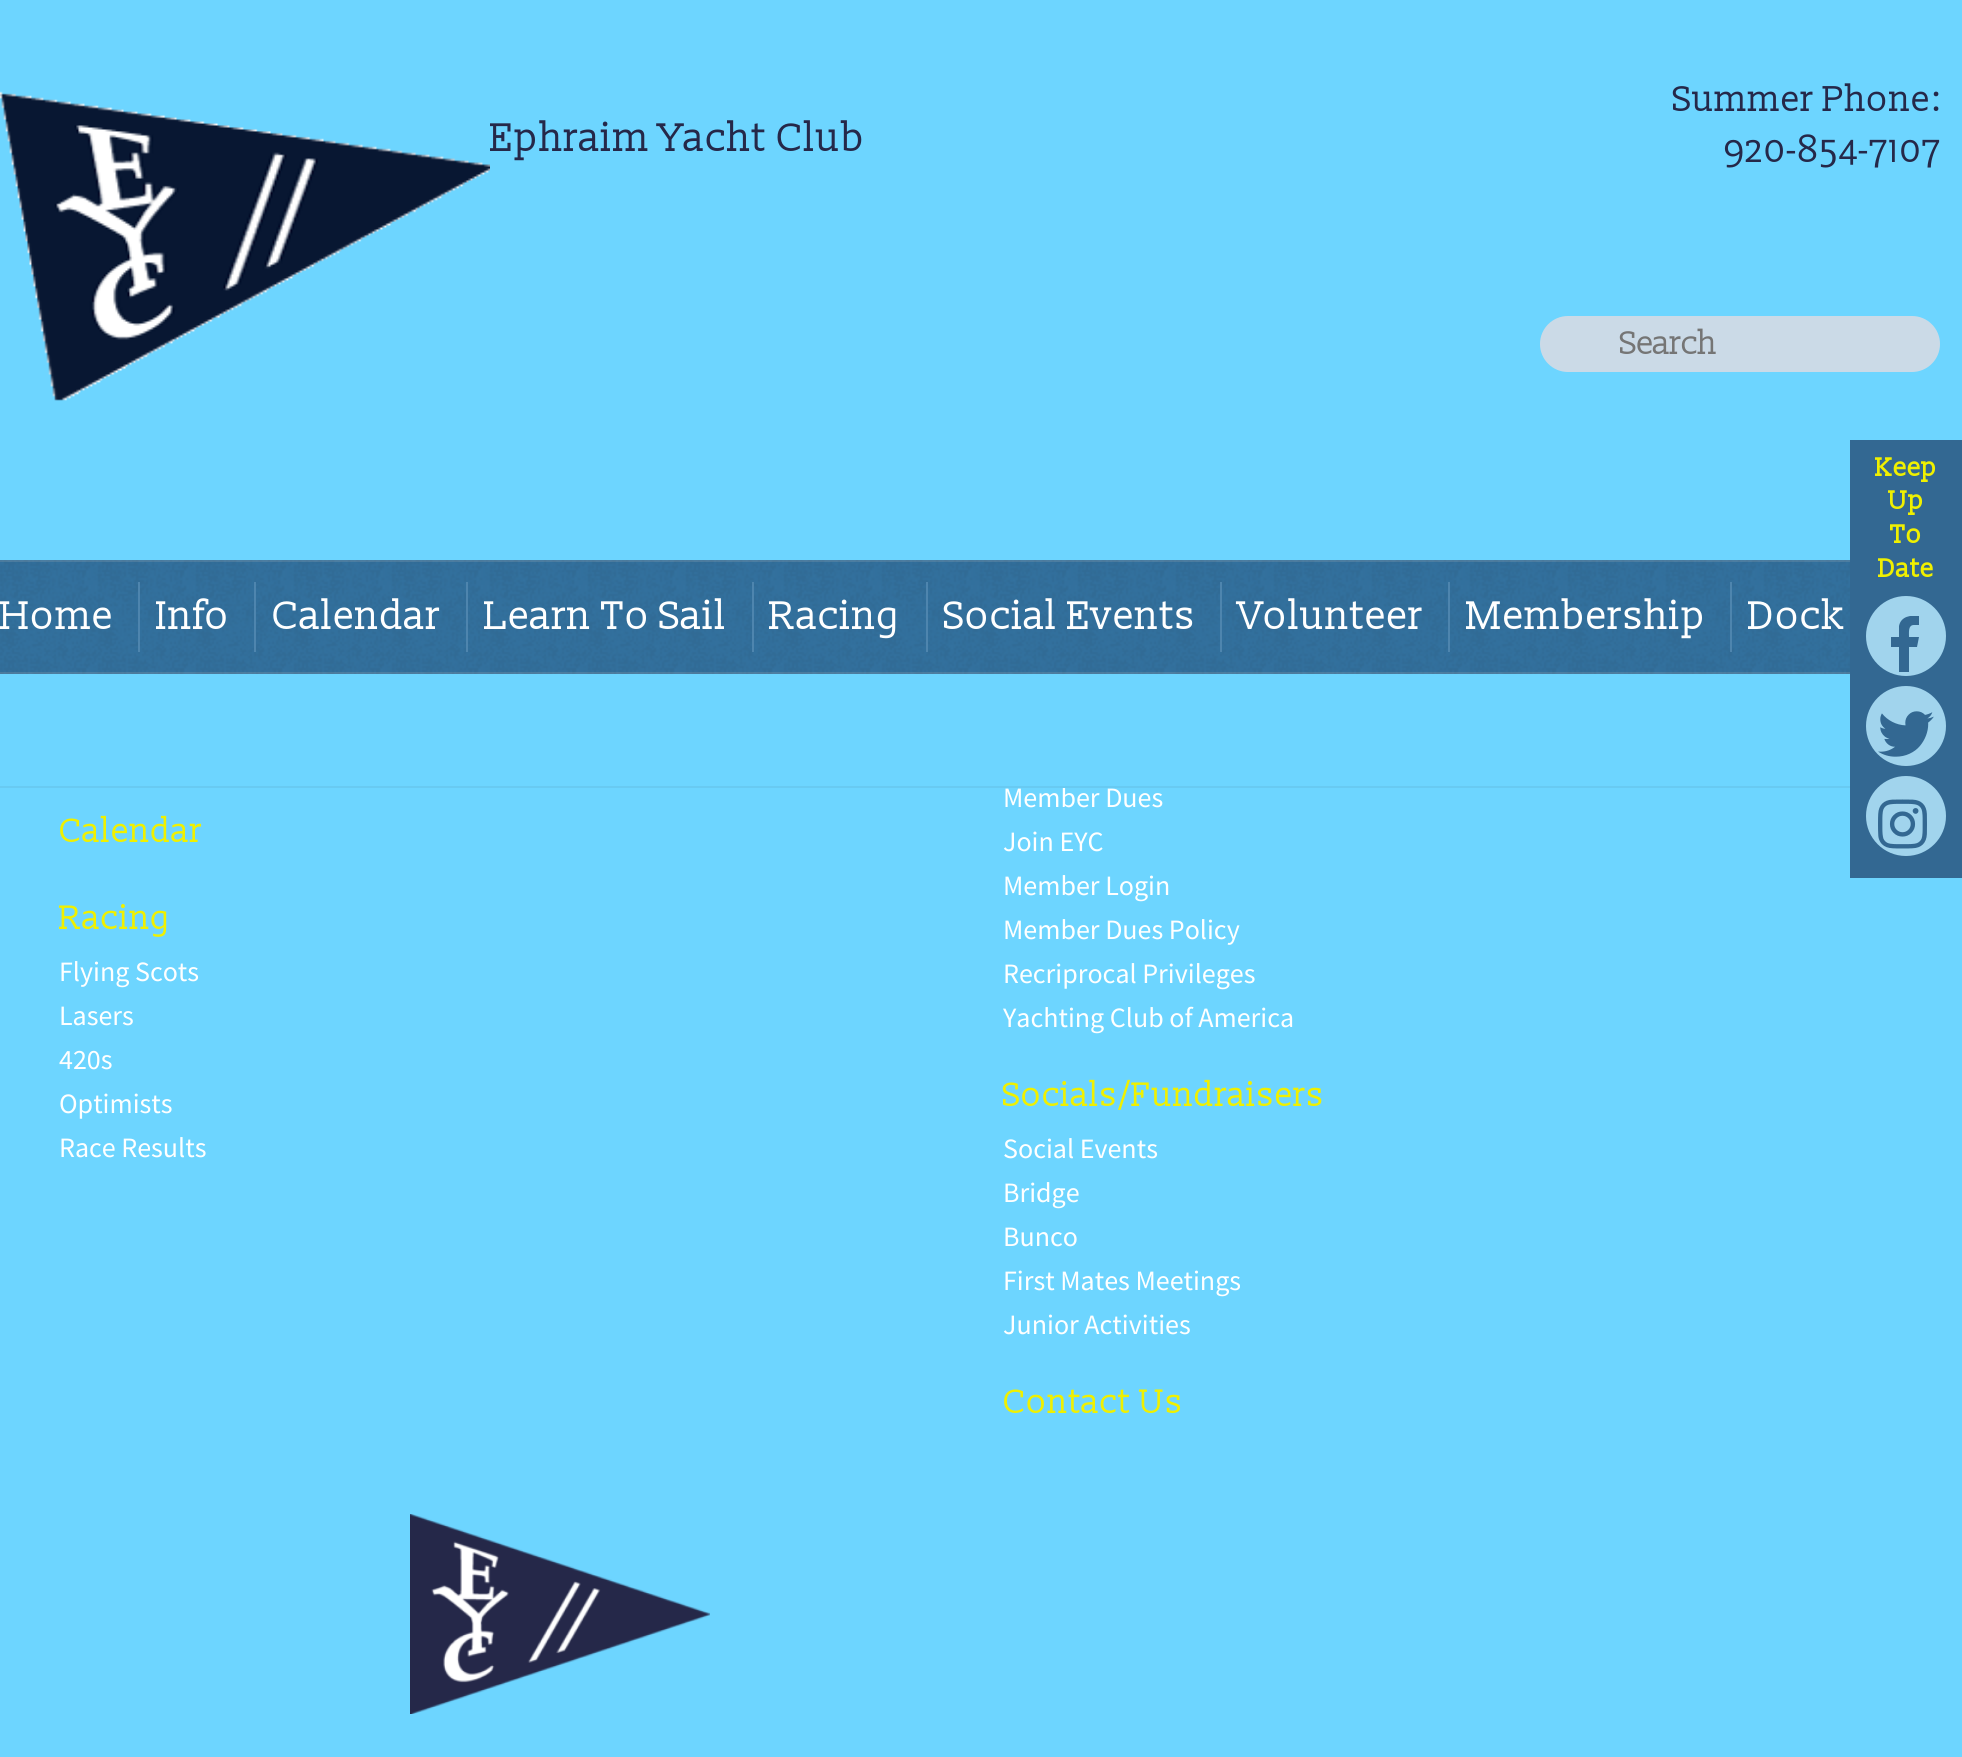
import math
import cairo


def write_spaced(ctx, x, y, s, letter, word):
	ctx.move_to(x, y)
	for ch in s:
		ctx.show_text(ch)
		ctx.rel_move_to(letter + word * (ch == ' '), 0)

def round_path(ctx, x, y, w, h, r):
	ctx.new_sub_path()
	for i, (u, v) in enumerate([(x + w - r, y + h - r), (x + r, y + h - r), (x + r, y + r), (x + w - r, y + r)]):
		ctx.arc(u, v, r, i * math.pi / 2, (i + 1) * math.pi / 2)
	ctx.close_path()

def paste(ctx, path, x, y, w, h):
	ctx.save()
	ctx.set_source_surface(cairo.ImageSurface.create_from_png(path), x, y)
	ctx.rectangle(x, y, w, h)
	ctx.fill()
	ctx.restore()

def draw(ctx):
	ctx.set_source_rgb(0.427, 0.835, 1)
	ctx.paint()
	ctx.select_font_face('Source Sans Pro')
	ctx.set_font_size(28)
	ctx.set_source_rgb(1, 1, 1)
	ctx.move_to(1003, 807)
	ctx.show_text('Member Dues')
	ctx.set_source_rgb(0.408, 0.792, 0.949)
	ctx.rectangle(0, 786, 1850, 2)
	ctx.fill()
	ctx.select_font_face('Slabo 13px')
	ctx.set_font_size(36)
	ctx.set_source_rgb(0.145, 0.157, 0.286)
	ctx.move_to(1673, 111)
	ctx.show_text('Summer Phone:')
	ctx.move_to(1724, 162)
	ctx.show_text('920-854-7107')
	ctx.set_source_rgb(0.796, 0.855, 0.906)
	round_path(ctx, 1540, 316, 400, 56, 28)
	ctx.fill()
	ctx.set_font_size(33)
	ctx.set_source_rgb(0.459, 0.459, 0.459)
	write_spaced(ctx, 1620, 354, 'Search', -1.25, 0)
	paste(ctx, 'media/1.png', 0, 560, 1850, 114)
	ctx.set_source_rgba(0.706, 0.706, 0.706, 0.2)
	ctx.rectangle(0, 560, 1850, 2)
	ctx.fill()
	ctx.rectangle(0, 672, 1850, 2)
	ctx.fill()
	ctx.set_font_size(40)
	ctx.set_source_rgb(1, 1, 1)
	ctx.move_to(0, 629)
	ctx.show_text('Home')
	ctx.set_source_rgb(0.306, 0.522, 0.682)
	ctx.rectangle(138, 582, 2, 70)
	ctx.fill()
	ctx.set_source_rgb(1, 1, 1)
	ctx.move_to(156, 629)
	ctx.show_text('Info')
	ctx.set_source_rgb(0.306, 0.522, 0.682)
	ctx.rectangle(254, 582, 2, 70)
	ctx.fill()
	ctx.set_source_rgb(1, 1, 1)
	ctx.move_to(272, 629)
	ctx.show_text('Calendar')
	ctx.set_source_rgb(0.306, 0.522, 0.682)
	ctx.rectangle(466, 582, 2, 70)
	ctx.fill()
	ctx.set_source_rgb(1, 1, 1)
	ctx.move_to(484, 629)
	ctx.show_text('Learn To Sail')
	ctx.set_source_rgb(0.306, 0.522, 0.682)
	ctx.rectangle(752, 582, 2, 70)
	ctx.fill()
	ctx.set_source_rgb(1, 1, 1)
	ctx.move_to(769, 629)
	ctx.show_text('Racing')
	ctx.set_source_rgb(0.306, 0.522, 0.682)
	ctx.rectangle(926, 582, 2, 70)
	ctx.fill()
	ctx.set_source_rgb(1, 1, 1)
	ctx.move_to(944, 629)
	ctx.show_text('Social Events')
	ctx.set_source_rgb(0.306, 0.522, 0.682)
	ctx.rectangle(1220, 582, 2, 70)
	ctx.fill()
	ctx.set_source_rgb(1, 1, 1)
	ctx.move_to(1239, 629)
	ctx.show_text('Volunteer')
	ctx.set_source_rgb(0.306, 0.522, 0.682)
	ctx.rectangle(1448, 582, 2, 70)
	ctx.fill()
	ctx.set_source_rgb(1, 1, 1)
	ctx.move_to(1466, 629)
	ctx.show_text('Membership')
	ctx.set_source_rgb(0.306, 0.522, 0.682)
	ctx.rectangle(1730, 582, 2, 70)
	ctx.fill()
	ctx.set_source_rgb(1, 1, 1)
	ctx.move_to(1748, 629)
	ctx.show_text('Dock')
	paste(ctx, 'media/2.png', 0, 91, 490, 310)
	ctx.set_source_rgb(0.145, 0.157, 0.286)
	ctx.move_to(490, 151)
	ctx.show_text('Ephraim Yacht Club')
	ctx.set_source_rgb(0.2, 0.408, 0.573)
	ctx.rectangle(1850, 440, 112, 438)
	ctx.fill()
	ctx.select_font_face('Slabo 13px', cairo.FONT_SLANT_NORMAL, cairo.FONT_WEIGHT_BOLD)
	ctx.set_font_size(26)
	ctx.set_source_rgb(0.941, 0.941, 0)
	for x, y, s in [
		(1875, 476, 'Keep'),
		(1888, 509, 'Up'),
		(1890, 543, 'To'),
		(1878, 577, 'Date'),
	]:
		ctx.move_to(x, y)
		ctx.show_text(s)
	ctx.set_source_rgb(0.631, 0.831, 0.929)
	ctx.new_path()
	ctx.arc(1906, 636, 40, 0, 2 * math.pi)
	ctx.fill()
	ctx.save()
	ctx.rectangle(1878, 616, 55, 56)
	ctx.clip()
	ctx.set_source_rgb(0.2, 0.408, 0.573)
	ctx.new_path()
	ctx.move_to(1914, 625)
	ctx.curve_to(1908, 625, 1909, 632, 1909, 637)
	ctx.line_to(1919, 637)
	ctx.line_to(1917, 647)
	ctx.line_to(1909, 647)
	ctx.line_to(1909, 672)
	ctx.line_to(1899, 672)
	ctx.line_to(1899, 647)
	ctx.line_to(1891, 647)
	ctx.line_to(1891, 637)
	ctx.line_to(1899, 637)
	ctx.line_to(1899, 626)
	ctx.curve_to(1901, 616, 1911, 615, 1919, 616)
	ctx.line_to(1919, 625)
	ctx.close_path()
	ctx.fill()
	ctx.restore()
	ctx.arc(1906, 726, 40, 0, 2 * math.pi)
	ctx.fill()
	paste(ctx, 'media/3.png', 1878, 711, 56, 46)
	ctx.arc(1906, 816, 40, 0, 2 * math.pi)
	ctx.fill()
	paste(ctx, 'media/4.png', 1878, 799, 49, 50)
	ctx.select_font_face('Slabo 13px')
	ctx.set_font_size(34)
	ctx.set_source_rgb(0.941, 0.941, 0)
	ctx.move_to(59, 842)
	ctx.show_text('Calendar')
	ctx.move_to(59, 929)
	ctx.show_text('Racing')
	ctx.select_font_face('Source Sans Pro')
	ctx.set_font_size(28)
	ctx.set_source_rgb(1, 1, 1)
	for x, y, s in [
		(59, 981, 'Flying Scots'),
		(59, 1025, 'Lasers'),
		(59, 1069, '420s'),
		(59, 1113, 'Optimists'),
		(59, 1157, 'Race Results'),
		(1003, 851, 'Join EYC'),
		(1003, 895, 'Member Login'),
		(1003, 939, 'Member Dues Policy'),
		(1003, 983, 'Recriprocal Privileges'),
		(1003, 1027, 'Yachting Club of America'),
	]:
		ctx.move_to(x, y)
		ctx.show_text(s)
	ctx.select_font_face('Slabo 13px')
	ctx.set_font_size(34)
	ctx.set_source_rgb(0.941, 0.941, 0)
	ctx.move_to(1003, 1106)
	ctx.show_text('Socials/Fundraisers')
	ctx.select_font_face('Source Sans Pro')
	ctx.set_font_size(28)
	ctx.set_source_rgb(1, 1, 1)
	for x, y, s in [
		(1003, 1158, 'Social Events'),
		(1003, 1202, 'Bridge'),
		(1003, 1246, 'Bunco'),
		(1003, 1290, 'First Mates Meetings'),
		(1003, 1334, 'Junior Activities'),
	]:
		ctx.move_to(x, y)
		ctx.show_text(s)
	ctx.select_font_face('Slabo 13px')
	ctx.set_font_size(34)
	ctx.set_source_rgb(0.941, 0.941, 0)
	ctx.move_to(1003, 1413)
	ctx.show_text('Contact Us')
	paste(ctx, 'media/5.png', 410, 1514, 300, 200)


surface = cairo.ImageSurface(cairo.FORMAT_RGB24, 1962, 1757)
ctx = cairo.Context(surface)
options = cairo.FontOptions()
options.set_hint_metrics(cairo.HINT_METRICS_OFF)
options.set_hint_style(cairo.HINT_STYLE_NONE)
ctx.set_font_options(options)
ctx.set_miter_limit(4)
draw(ctx)
surface.write_to_png('image.png')
